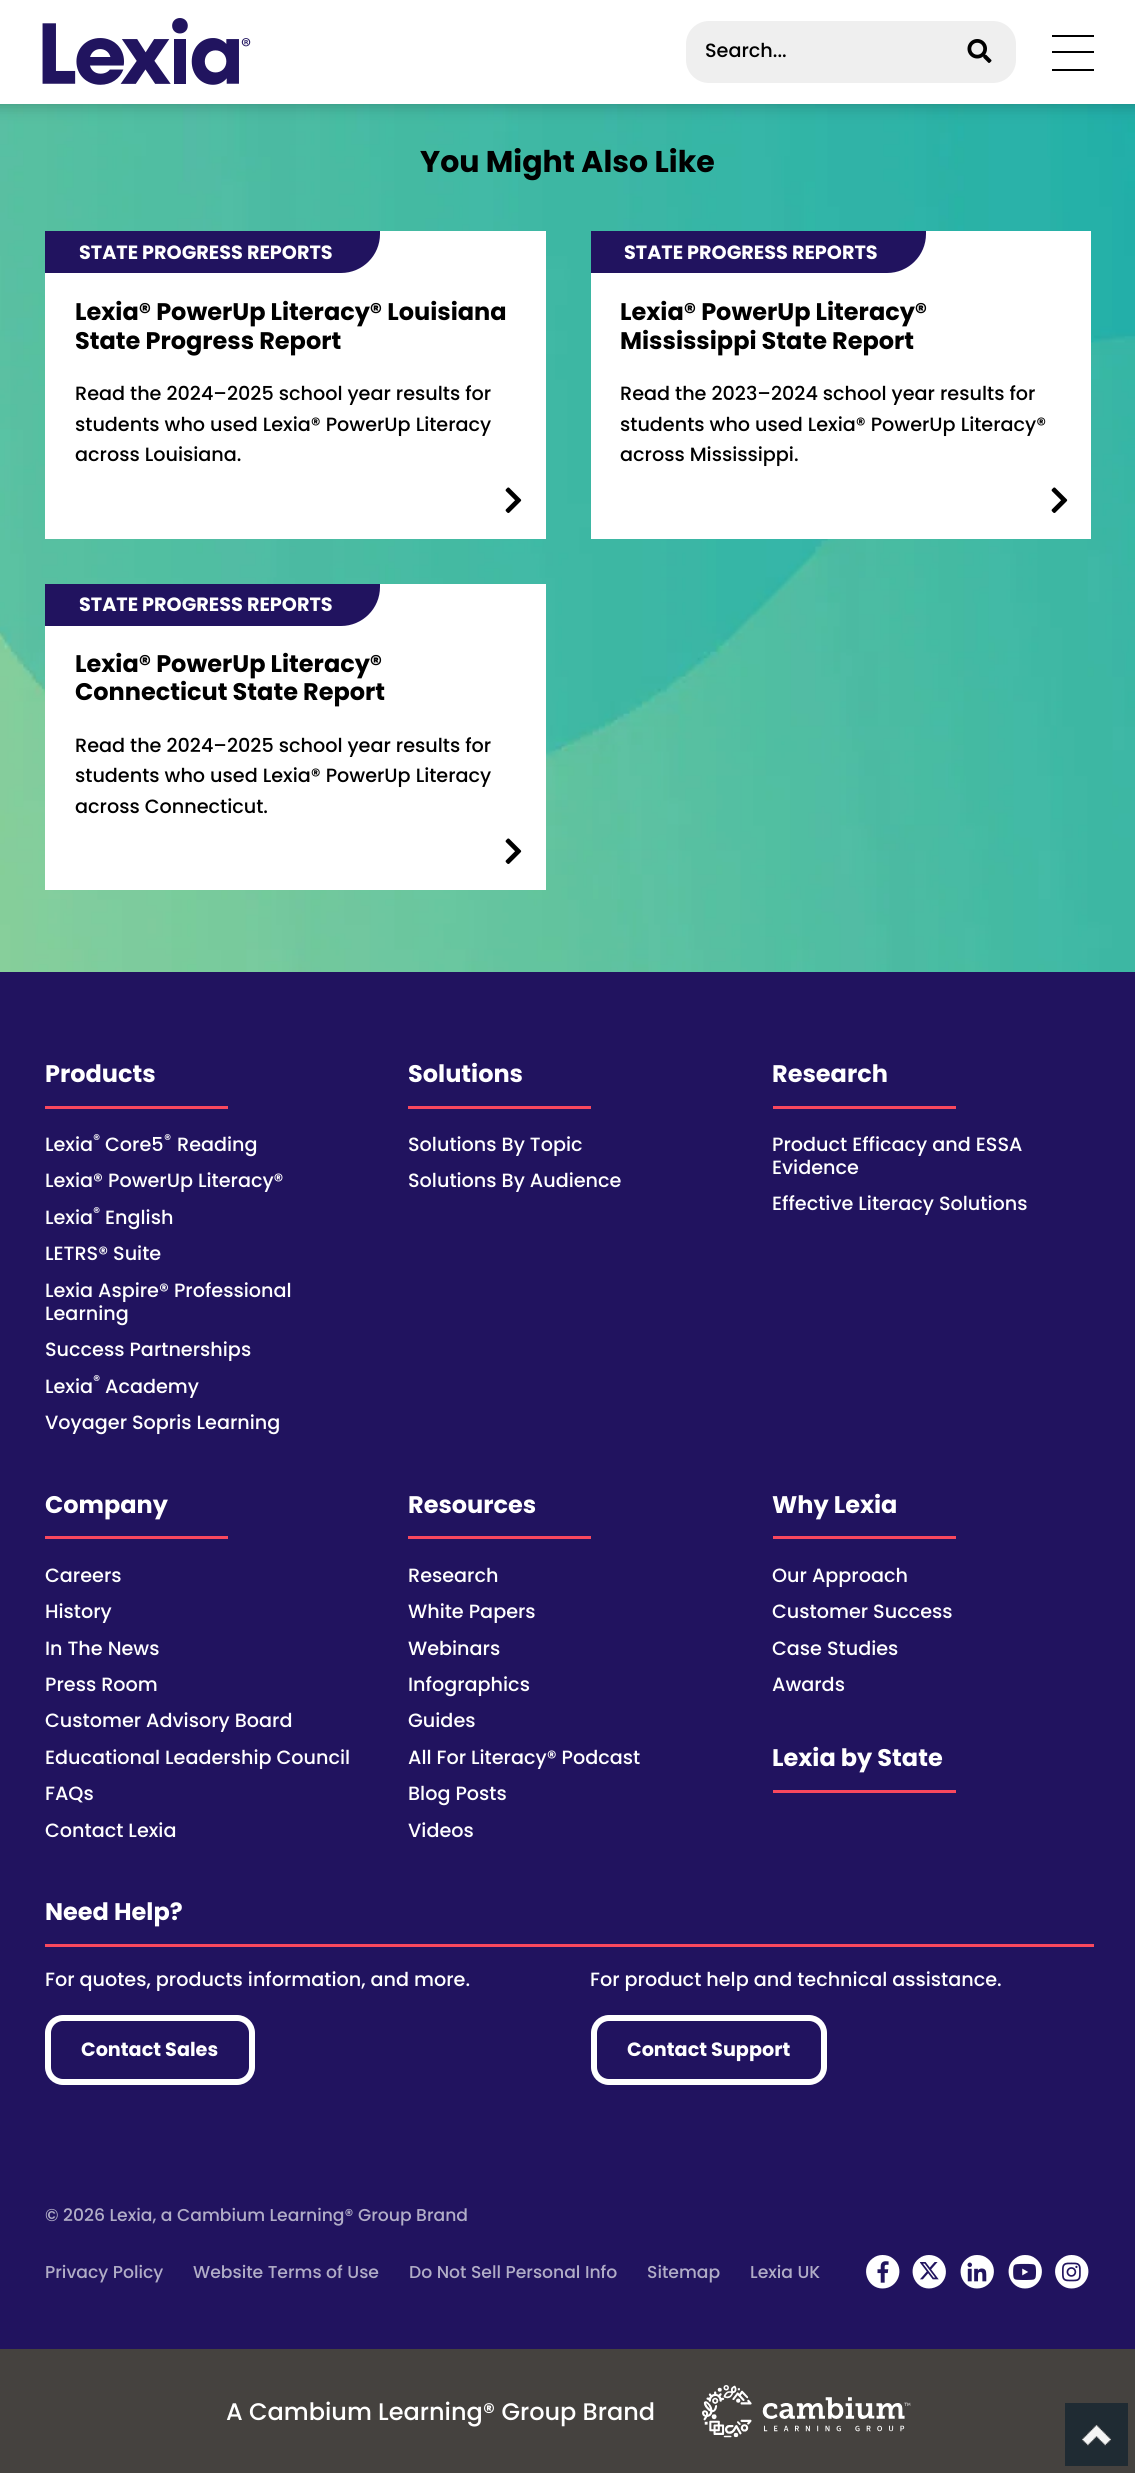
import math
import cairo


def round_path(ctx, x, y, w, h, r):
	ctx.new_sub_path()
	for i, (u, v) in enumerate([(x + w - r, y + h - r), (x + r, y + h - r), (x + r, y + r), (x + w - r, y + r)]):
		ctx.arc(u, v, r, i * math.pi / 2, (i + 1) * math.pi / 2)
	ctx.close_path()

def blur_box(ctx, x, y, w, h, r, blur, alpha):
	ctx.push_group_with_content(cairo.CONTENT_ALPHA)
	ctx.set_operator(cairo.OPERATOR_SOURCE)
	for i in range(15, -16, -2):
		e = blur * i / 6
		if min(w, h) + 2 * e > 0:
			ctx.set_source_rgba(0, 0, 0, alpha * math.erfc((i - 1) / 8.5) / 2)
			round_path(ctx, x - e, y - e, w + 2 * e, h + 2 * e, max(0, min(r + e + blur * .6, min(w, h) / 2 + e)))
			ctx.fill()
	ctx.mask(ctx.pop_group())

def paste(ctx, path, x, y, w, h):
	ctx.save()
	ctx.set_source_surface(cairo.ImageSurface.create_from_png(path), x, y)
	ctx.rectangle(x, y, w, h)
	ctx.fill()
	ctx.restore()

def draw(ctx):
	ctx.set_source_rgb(1, 1, 1)
	ctx.paint()
	paste(ctx, 'media/3.png', 0, 104, 1135, 868)
	ctx.set_source_rgb(0, 0, 0)
	blur_box(ctx, -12, -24, 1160, 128, 0, 9, 0.25)
	ctx.set_source_rgb(1, 1, 1)
	ctx.rectangle(0, 0, 1135, 104)
	ctx.fill()
	paste(ctx, 'media/1.png', 42, 18, 209, 67)
	ctx.set_source_rgb(0.937, 0.937, 0.937)
	round_path(ctx, 686, 21, 330, 62, 23)
	ctx.fill()
	ctx.select_font_face('Poppins Medium')
	ctx.set_font_size(19.2)
	ctx.set_source_rgb(0, 0, 0)
	ctx.move_to(705, 57)
	ctx.show_text('Search...')
	paste(ctx, 'media/2.png', 967, 39, 25, 24)
	ctx.rectangle(1052, 35, 42, 2)
	ctx.rectangle(1052, 51, 42, 2)
	ctx.rectangle(1052, 69, 42, 2)
	ctx.fill()
	ctx.select_font_face('Poppins', cairo.FONT_SLANT_NORMAL, cairo.FONT_WEIGHT_BOLD)
	ctx.set_font_size(30)
	ctx.move_to(420, 172)
	ctx.show_text('You Might Also Like')
	ctx.set_source_rgb(1, 1, 1)
	ctx.rectangle(45, 231, 501, 308)
	ctx.fill()
	ctx.set_source_rgb(0.129, 0.078, 0.373)
	ctx.new_path()
	ctx.move_to(45, 231)
	ctx.line_to(380, 231)
	ctx.line_to(380, 234)
	ctx.curve_to(380, 255.5, 362.5, 273, 341, 273)
	ctx.line_to(45, 273)
	ctx.close_path()
	ctx.fill()
	ctx.set_font_size(19.2)
	ctx.set_source_rgb(1, 1, 1)
	ctx.move_to(79, 259)
	ctx.show_text('STATE PROGRESS REPORTS')
	ctx.set_font_size(24)
	ctx.set_source_rgb(0, 0, 0)
	ctx.move_to(75, 320)
	ctx.show_text('Lexia® PowerUp Literacy® Louisiana')
	ctx.move_to(75, 349)
	ctx.show_text('State Progress Report')
	ctx.select_font_face('Poppins Medium')
	ctx.set_font_size(19.2)
	for x, y, s in [
		(75, 400, 'Read the 2024–2025 school year results for'),
		(75, 431, 'students who used Lexia® PowerUp Literacy'),
		(75, 461, 'across Louisiana.'),
	]:
		ctx.move_to(x, y)
		ctx.show_text(s)
	paste(ctx, 'media/4.png', 505, 487, 17, 26)
	ctx.set_source_rgb(1, 1, 1)
	ctx.rectangle(591, 231, 500, 308)
	ctx.fill()
	ctx.set_source_rgb(0.129, 0.078, 0.373)
	ctx.new_path()
	ctx.move_to(591, 231)
	ctx.line_to(926, 231)
	ctx.line_to(926, 234)
	ctx.curve_to(926, 255.5, 908.5, 273, 887, 273)
	ctx.line_to(591, 273)
	ctx.close_path()
	ctx.fill()
	ctx.select_font_face('Poppins', cairo.FONT_SLANT_NORMAL, cairo.FONT_WEIGHT_BOLD)
	ctx.set_source_rgb(1, 1, 1)
	ctx.move_to(624, 259)
	ctx.show_text('STATE PROGRESS REPORTS')
	ctx.set_font_size(24)
	ctx.set_source_rgb(0, 0, 0)
	ctx.move_to(620, 320)
	ctx.show_text('Lexia® PowerUp Literacy®')
	ctx.move_to(620, 349)
	ctx.show_text('Mississippi State Report')
	ctx.select_font_face('Poppins Medium')
	ctx.set_font_size(19.2)
	for x, y, s in [
		(620, 400, 'Read the 2023–2024 school year results for'),
		(620, 431, 'students who used Lexia® PowerUp Literacy®'),
		(620, 461, 'across Mississippi.'),
	]:
		ctx.move_to(x, y)
		ctx.show_text(s)
	paste(ctx, 'media/4.png', 1051, 487, 17, 26)
	ctx.set_source_rgb(1, 1, 1)
	ctx.rectangle(45, 584, 501, 306)
	ctx.fill()
	ctx.set_source_rgb(0.129, 0.078, 0.373)
	ctx.new_path()
	ctx.move_to(45, 584)
	ctx.line_to(380, 584)
	ctx.line_to(380, 587)
	ctx.curve_to(380, 608.5, 362.5, 626, 341, 626)
	ctx.line_to(45, 626)
	ctx.close_path()
	ctx.fill()
	ctx.select_font_face('Poppins', cairo.FONT_SLANT_NORMAL, cairo.FONT_WEIGHT_BOLD)
	ctx.set_source_rgb(1, 1, 1)
	ctx.move_to(79, 611)
	ctx.show_text('STATE PROGRESS REPORTS')
	ctx.set_font_size(24)
	ctx.set_source_rgb(0, 0, 0)
	ctx.move_to(75, 672)
	ctx.show_text('Lexia® PowerUp Literacy®')
	ctx.move_to(75, 700)
	ctx.show_text('Connecticut State Report')
	ctx.select_font_face('Poppins Medium')
	ctx.set_font_size(19.2)
	for x, y, s in [
		(75, 752, 'Read the 2024–2025 school year results for'),
		(75, 782, 'students who used Lexia® PowerUp Literacy'),
		(75, 813, 'across Connecticut.'),
	]:
		ctx.move_to(x, y)
		ctx.show_text(s)
	paste(ctx, 'media/4.png', 505, 838, 17, 26)
	ctx.set_source_rgb(0.129, 0.078, 0.373)
	ctx.rectangle(0, 972, 1135, 1377)
	ctx.fill()
	ctx.select_font_face('Poppins', cairo.FONT_SLANT_NORMAL, cairo.FONT_WEIGHT_BOLD)
	ctx.set_font_size(24)
	ctx.set_source_rgb(1, 1, 1)
	ctx.move_to(45, 1082)
	ctx.show_text('Products')
	ctx.set_source_rgb(0.973, 0.282, 0.369)
	ctx.rectangle(45, 1106, 183, 3)
	ctx.fill()
	ctx.select_font_face('Poppins Medium')
	ctx.set_font_size(19.2)
	ctx.set_source_rgb(1, 1, 1)
	ctx.move_to(45, 1151)
	ctx.show_text('Lexia')
	ctx.set_font_size(14)
	ctx.move_to(93, 1144)
	ctx.show_text('®')
	ctx.set_font_size(19.2)
	ctx.move_to(105, 1151)
	ctx.show_text('Core5')
	ctx.set_font_size(14)
	ctx.move_to(164, 1144)
	ctx.show_text('®')
	ctx.set_font_size(19.2)
	for x, y, s in [
		(177, 1151, 'Reading'),
		(45, 1187, 'Lexia® PowerUp Literacy®'),
		(45, 1224, 'Lexia'),
	]:
		ctx.move_to(x, y)
		ctx.show_text(s)
	ctx.set_font_size(14)
	ctx.move_to(93, 1217)
	ctx.show_text('®')
	ctx.set_font_size(19.2)
	for x, y, s in [
		(105, 1224, 'English'),
		(45, 1260, 'LETRS® Suite'),
		(45, 1297, 'Lexia Aspire® Professional'),
		(45, 1320, 'Learning'),
		(45, 1356, 'Success Partnerships'),
		(45, 1393, 'Lexia'),
	]:
		ctx.move_to(x, y)
		ctx.show_text(s)
	ctx.set_font_size(14)
	ctx.move_to(93, 1385)
	ctx.show_text('®')
	ctx.set_font_size(19.2)
	ctx.move_to(105, 1393)
	ctx.show_text('Academy')
	ctx.move_to(45, 1429)
	ctx.show_text('Voyager Sopris Learning')
	ctx.select_font_face('Poppins', cairo.FONT_SLANT_NORMAL, cairo.FONT_WEIGHT_BOLD)
	ctx.set_font_size(24)
	ctx.move_to(408, 1082)
	ctx.show_text('Solutions')
	ctx.set_source_rgb(0.973, 0.282, 0.369)
	ctx.rectangle(408, 1106, 183, 3)
	ctx.fill()
	ctx.select_font_face('Poppins Medium')
	ctx.set_font_size(19.2)
	ctx.set_source_rgb(1, 1, 1)
	ctx.move_to(408, 1151)
	ctx.show_text('Solutions By Topic')
	ctx.move_to(408, 1187)
	ctx.show_text('Solutions By Audience')
	ctx.select_font_face('Poppins', cairo.FONT_SLANT_NORMAL, cairo.FONT_WEIGHT_BOLD)
	ctx.set_font_size(24)
	ctx.move_to(772, 1082)
	ctx.show_text('Research')
	ctx.set_source_rgb(0.973, 0.282, 0.369)
	ctx.rectangle(773, 1106, 183, 3)
	ctx.fill()
	ctx.select_font_face('Poppins Medium')
	ctx.set_font_size(19.2)
	ctx.set_source_rgb(1, 1, 1)
	for x, y, s in [
		(772, 1151, 'Product Efficacy and ESSA'),
		(772, 1174, 'Evidence'),
		(772, 1210, 'Effective Literacy Solutions'),
	]:
		ctx.move_to(x, y)
		ctx.show_text(s)
	ctx.select_font_face('Poppins', cairo.FONT_SLANT_NORMAL, cairo.FONT_WEIGHT_BOLD)
	ctx.set_font_size(24)
	ctx.move_to(45, 1513)
	ctx.show_text('Company')
	ctx.set_source_rgb(0.973, 0.282, 0.369)
	ctx.rectangle(45, 1536, 183, 3)
	ctx.fill()
	ctx.select_font_face('Poppins Medium')
	ctx.set_font_size(19.2)
	ctx.set_source_rgb(1, 1, 1)
	for x, y, s in [
		(45, 1582, 'Careers'),
		(45, 1618, 'History'),
		(45, 1655, 'In The News'),
		(45, 1691, 'Press Room'),
		(45, 1727, 'Customer Advisory Board'),
		(45, 1764, 'Educational Leadership Council'),
		(45, 1800, 'FAQs'),
		(45, 1837, 'Contact Lexia'),
	]:
		ctx.move_to(x, y)
		ctx.show_text(s)
	ctx.select_font_face('Poppins', cairo.FONT_SLANT_NORMAL, cairo.FONT_WEIGHT_BOLD)
	ctx.set_font_size(24)
	ctx.move_to(408, 1513)
	ctx.show_text('Resources')
	ctx.set_source_rgb(0.973, 0.282, 0.369)
	ctx.rectangle(408, 1536, 183, 3)
	ctx.fill()
	ctx.select_font_face('Poppins Medium')
	ctx.set_font_size(19.2)
	ctx.set_source_rgb(1, 1, 1)
	for x, y, s in [
		(408, 1582, 'Research'),
		(408, 1618, 'White Papers'),
		(408, 1655, 'Webinars'),
		(408, 1691, 'Infographics'),
		(408, 1727, 'Guides'),
		(408, 1764, 'All For Literacy® Podcast'),
		(408, 1800, 'Blog Posts'),
		(408, 1837, 'Videos'),
	]:
		ctx.move_to(x, y)
		ctx.show_text(s)
	ctx.select_font_face('Poppins', cairo.FONT_SLANT_NORMAL, cairo.FONT_WEIGHT_BOLD)
	ctx.set_font_size(24)
	ctx.move_to(772, 1513)
	ctx.show_text('Why Lexia')
	ctx.set_source_rgb(0.973, 0.282, 0.369)
	ctx.rectangle(773, 1536, 183, 3)
	ctx.fill()
	ctx.select_font_face('Poppins Medium')
	ctx.set_font_size(19.2)
	ctx.set_source_rgb(1, 1, 1)
	for x, y, s in [
		(772, 1582, 'Our Approach'),
		(772, 1618, 'Customer Success'),
		(772, 1655, 'Case Studies'),
		(772, 1691, 'Awards'),
	]:
		ctx.move_to(x, y)
		ctx.show_text(s)
	ctx.select_font_face('Poppins', cairo.FONT_SLANT_NORMAL, cairo.FONT_WEIGHT_BOLD)
	ctx.set_font_size(24)
	ctx.move_to(772, 1766)
	ctx.show_text('Lexia by State')
	ctx.set_source_rgb(0.973, 0.282, 0.369)
	ctx.rectangle(773, 1790, 183, 3)
	ctx.fill()
	ctx.set_source_rgb(1, 1, 1)
	ctx.move_to(45, 1920)
	ctx.show_text('Need Help?')
	ctx.set_source_rgb(0.973, 0.282, 0.369)
	ctx.rectangle(45, 1944, 1049, 3)
	ctx.fill()
	ctx.select_font_face('Poppins Medium')
	ctx.set_font_size(19.2)
	ctx.set_source_rgb(1, 1, 1)
	ctx.move_to(45, 1986)
	ctx.show_text('For quotes, products information, and more.')
	round_path(ctx, 48, 2018, 204, 64, 15)
	ctx.set_line_width(6)
	ctx.stroke()
	ctx.select_font_face('Poppins', cairo.FONT_SLANT_NORMAL, cairo.FONT_WEIGHT_BOLD)
	ctx.move_to(81, 2056)
	ctx.show_text('Contact Sales')
	ctx.select_font_face('Poppins Medium')
	ctx.move_to(590, 1986)
	ctx.show_text('For product help and technical assistance.')
	round_path(ctx, 594, 2018, 230, 64, 15)
	ctx.stroke()
	ctx.select_font_face('Poppins', cairo.FONT_SLANT_NORMAL, cairo.FONT_WEIGHT_BOLD)
	ctx.move_to(627, 2056)
	ctx.show_text('Contact Support')
	ctx.select_font_face('Poppins Medium')
	ctx.set_font_size(17.2)
	ctx.set_source_rgb(0.694, 0.678, 0.78)
	for x, y, s in [
		(45, 2221, '© 2026 Lexia, a Cambium Learning® Group Brand'),
		(45, 2278, 'Privacy Policy'),
		(193, 2278, 'Website Terms of Use'),
		(409, 2278, 'Do Not Sell Personal Info'),
		(647, 2278, 'Sitemap'),
		(750, 2278, 'Lexia UK'),
	]:
		ctx.move_to(x, y)
		ctx.show_text(s)
	ctx.set_source_rgb(1, 1, 1)
	ctx.new_path()
	ctx.move_to(882.5, 2255)
	ctx.curve_to(879, 2255, 875.5, 2256, 872.5, 2258.5)
	ctx.curve_to(860, 2268, 867, 2288.5, 882.5, 2288.5)
	ctx.curve_to(898.5, 2288.5, 905.5, 2268, 893, 2258.5)
	ctx.curve_to(890, 2256, 886.5, 2255, 882.5, 2255)
	ctx.close_path()
	ctx.fill()
	paste(ctx, 'media/5.png', 877, 2261, 12, 22)
	ctx.new_path()
	ctx.move_to(929, 2255)
	ctx.curve_to(925.5, 2255, 922, 2256, 919, 2258.5)
	ctx.curve_to(906.5, 2268, 913.5, 2288.5, 929, 2288.5)
	ctx.curve_to(933, 2288.5, 936.5, 2287, 939.5, 2285)
	ctx.curve_to(952, 2275, 945, 2255, 929, 2255)
	ctx.close_path()
	ctx.fill()
	paste(ctx, 'media/6.png', 920, 2262, 19, 18)
	ctx.new_path()
	ctx.move_to(977, 2255)
	ctx.curve_to(973.5, 2255, 970, 2256, 967, 2258.5)
	ctx.curve_to(954.5, 2268, 961.5, 2288.5, 977, 2288.5)
	ctx.curve_to(993, 2288.5, 1000, 2268, 987.5, 2258.5)
	ctx.curve_to(984.5, 2256, 981, 2255, 977, 2255)
	ctx.close_path()
	ctx.fill()
	paste(ctx, 'media/7.png', 967, 2262, 20, 20)
	ctx.new_path()
	ctx.move_to(1025, 2255)
	ctx.curve_to(1021.5, 2255, 1018, 2256, 1015, 2258.5)
	ctx.curve_to(1002.5, 2268, 1009.5, 2288.5, 1025, 2288.5)
	ctx.curve_to(1041, 2288.5, 1048, 2268, 1035.5, 2258.5)
	ctx.curve_to(1032.5, 2256, 1029, 2255, 1025, 2255)
	ctx.close_path()
	ctx.fill()
	paste(ctx, 'media/8.png', 1013, 2263, 23, 17)
	ctx.new_path()
	ctx.move_to(1071.5, 2255)
	ctx.curve_to(1068, 2255, 1064.5, 2256, 1061.5, 2258.5)
	ctx.curve_to(1049, 2268, 1056, 2288.5, 1071.5, 2288.5)
	ctx.curve_to(1087.5, 2288.5, 1094.5, 2268, 1082, 2258.5)
	ctx.curve_to(1079, 2256, 1075.5, 2255, 1071.5, 2255)
	ctx.close_path()
	ctx.fill()
	paste(ctx, 'media/9.png', 1062, 2262, 19, 20)
	ctx.set_source_rgb(0.271, 0.259, 0.247)
	ctx.rectangle(0, 2349, 1135, 124)
	ctx.fill()
	ctx.set_font_size(24)
	ctx.set_source_rgb(1, 1, 1)
	ctx.move_to(226, 2420)
	ctx.show_text('A Cambium Learning® Group Brand')
	paste(ctx, 'media/10.png', 702, 2385, 209, 53)
	paste(ctx, 'media/11.png', 1065, 2403, 63, 63)


surface = cairo.ImageSurface(cairo.FORMAT_RGB24, 1135, 2473)
ctx = cairo.Context(surface)
options = cairo.FontOptions()
options.set_hint_metrics(cairo.HINT_METRICS_OFF)
options.set_hint_style(cairo.HINT_STYLE_NONE)
ctx.set_font_options(options)
ctx.set_miter_limit(4)
draw(ctx)
surface.write_to_png('image.png')
